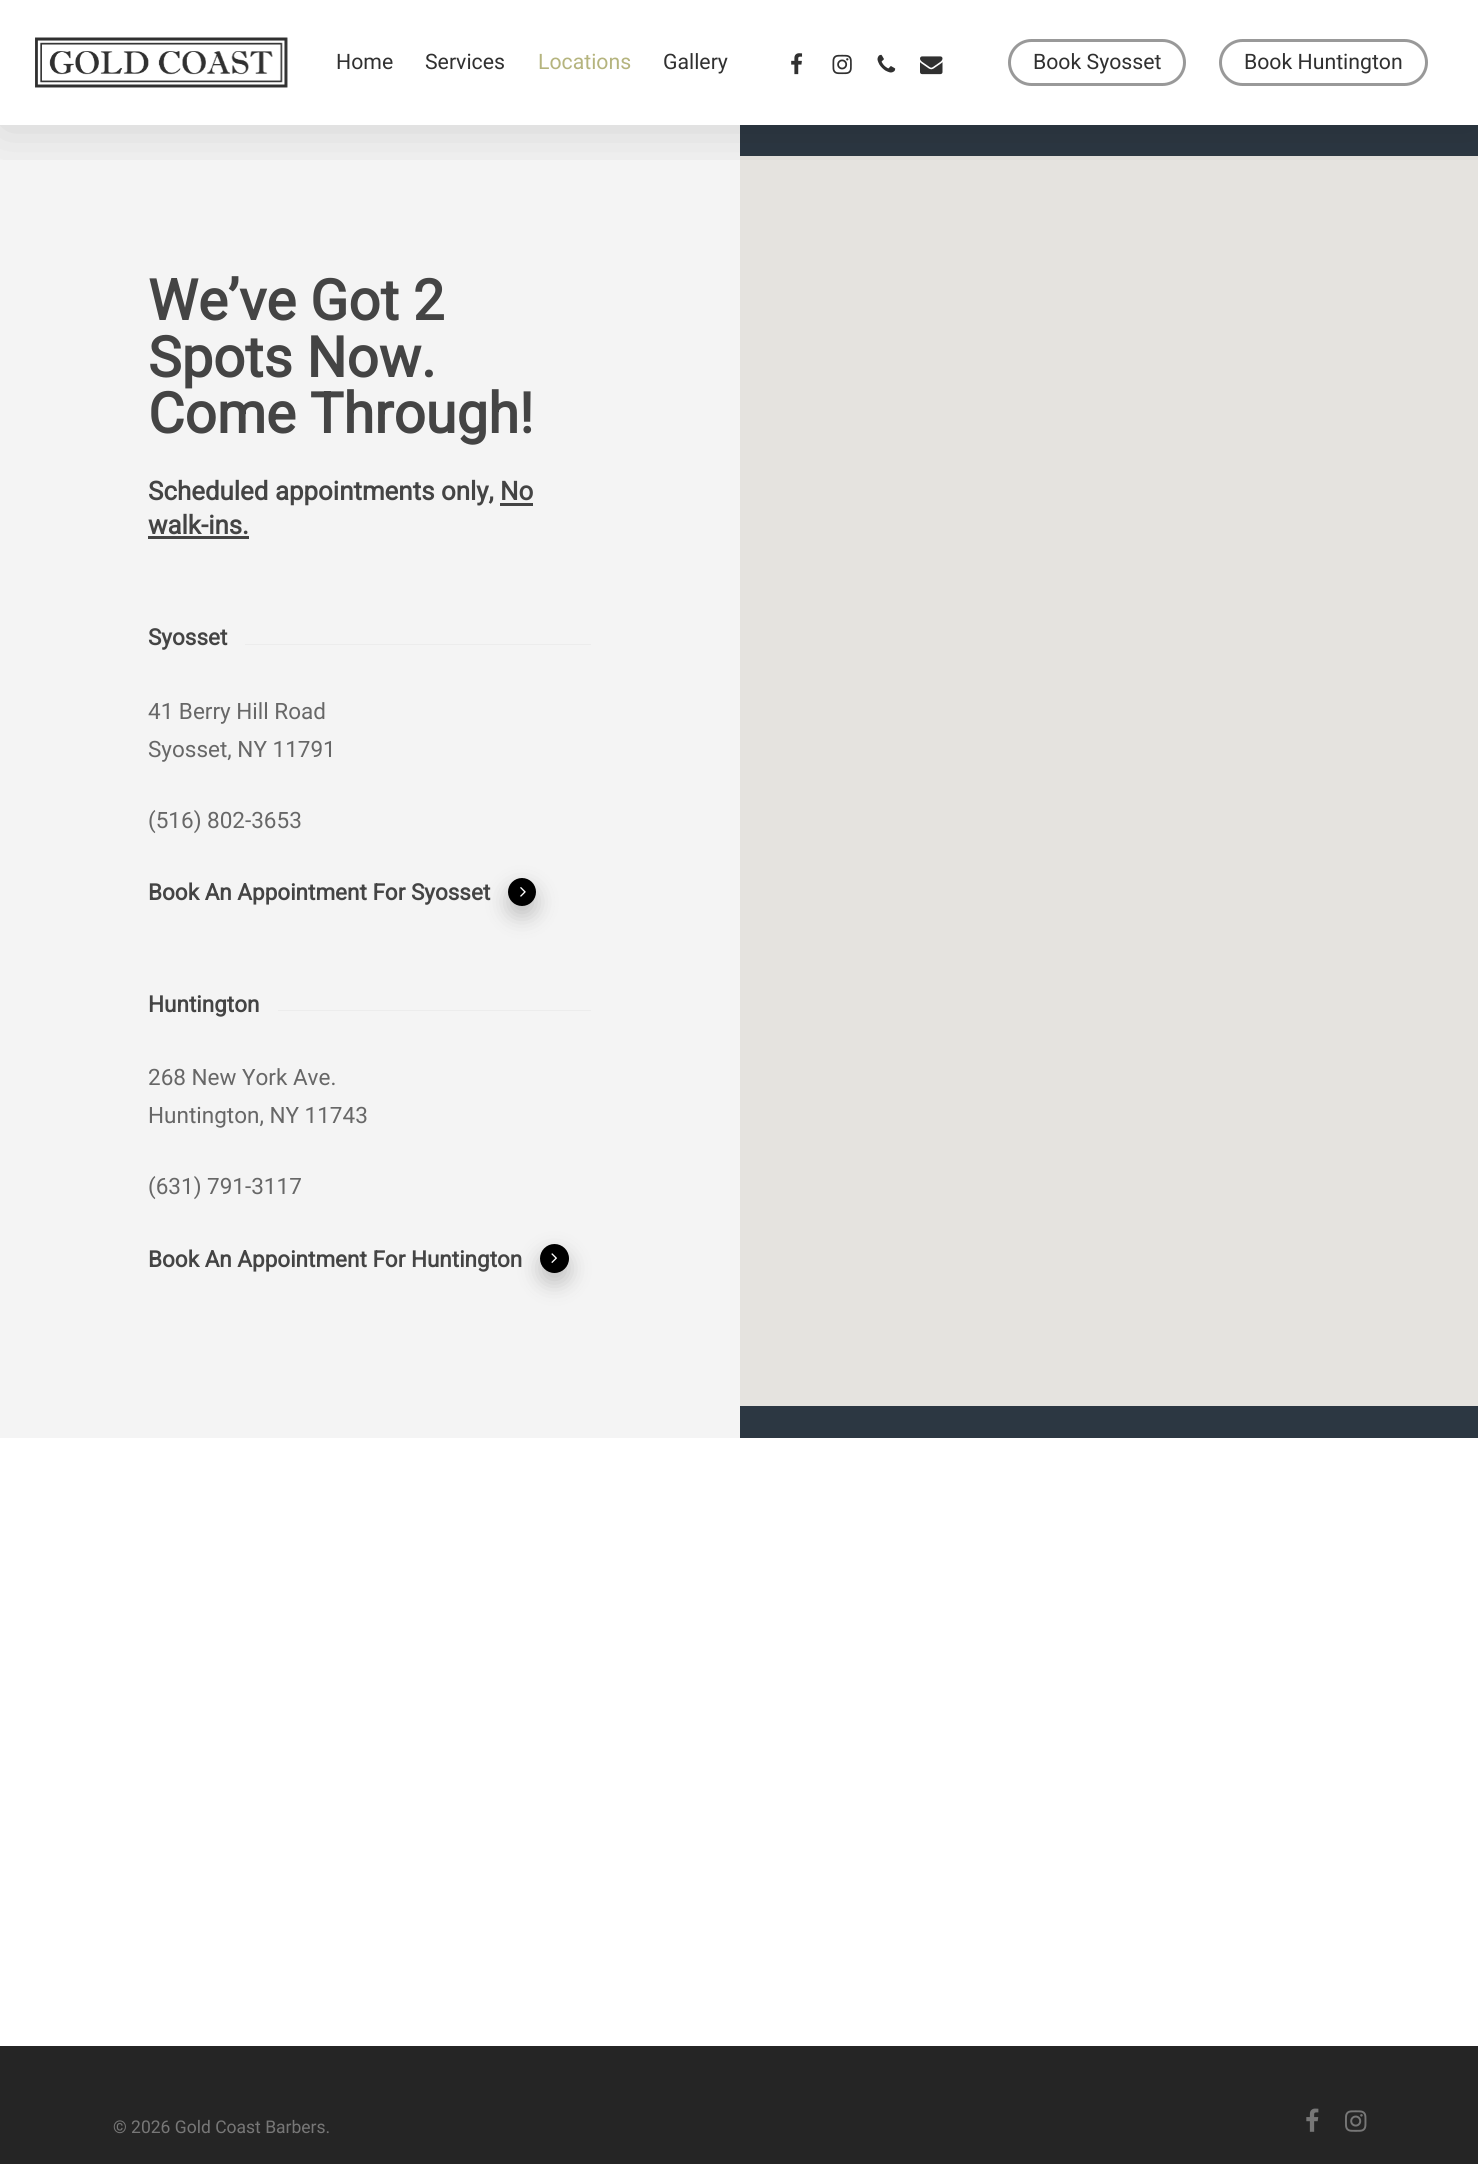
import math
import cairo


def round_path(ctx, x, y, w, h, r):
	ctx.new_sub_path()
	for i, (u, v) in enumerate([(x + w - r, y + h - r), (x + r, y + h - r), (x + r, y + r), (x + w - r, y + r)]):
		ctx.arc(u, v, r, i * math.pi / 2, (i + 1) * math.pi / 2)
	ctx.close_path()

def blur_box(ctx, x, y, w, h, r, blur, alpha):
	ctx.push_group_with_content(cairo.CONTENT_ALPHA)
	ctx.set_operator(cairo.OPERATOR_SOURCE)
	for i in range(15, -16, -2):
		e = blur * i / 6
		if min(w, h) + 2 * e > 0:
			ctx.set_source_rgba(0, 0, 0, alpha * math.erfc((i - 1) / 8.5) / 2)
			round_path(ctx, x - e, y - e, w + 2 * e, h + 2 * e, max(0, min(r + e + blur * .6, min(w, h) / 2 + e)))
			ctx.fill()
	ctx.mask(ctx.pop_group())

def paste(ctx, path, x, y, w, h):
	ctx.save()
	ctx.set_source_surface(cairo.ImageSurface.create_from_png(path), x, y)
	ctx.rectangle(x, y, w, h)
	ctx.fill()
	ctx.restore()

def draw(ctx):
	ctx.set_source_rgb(1, 1, 1)
	ctx.paint()
	ctx.set_source_rgb(0.957, 0.957, 0.957)
	ctx.rectangle(0, 125, 740, 1313)
	ctx.fill()
	ctx.set_source_rgb(0.173, 0.216, 0.259)
	ctx.rectangle(740, 125, 738, 1313)
	ctx.fill()
	ctx.set_source_rgb(0.898, 0.89, 0.875)
	ctx.rectangle(740, 156, 738, 1250)
	ctx.fill()
	ctx.save()
	ctx.rectangle(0, 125, 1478, 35)
	ctx.clip()
	ctx.set_source_rgb(0, 0, 0)
	blur_box(ctx, 0, 4, 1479, 125, 0, 28, 0.15)
	ctx.restore()
	paste(ctx, 'media/1.png', 35, 37, 253, 51)
	ctx.select_font_face('Roboto')
	ctx.set_font_size(21.25)
	ctx.set_source_rgb(0.188, 0.188, 0.188)
	ctx.move_to(336, 69)
	ctx.show_text('Home')
	ctx.move_to(425, 69)
	ctx.show_text('Services')
	ctx.set_source_rgb(0.71, 0.706, 0.494)
	ctx.move_to(538, 69)
	ctx.show_text('Locations')
	ctx.set_source_rgb(0.188, 0.188, 0.188)
	ctx.move_to(663, 69)
	ctx.show_text('Gallery')
	paste(ctx, 'media/2.png', 791, 53, 12, 22)
	paste(ctx, 'media/3.png', 832, 54, 20, 21)
	paste(ctx, 'media/4.png', 877, 54, 19, 19)
	paste(ctx, 'media/5.png', 920, 56, 23, 19)
	round_path(ctx, 1009.5, 40.5, 175, 44, 22)
	ctx.set_source_rgb(0.6, 0.6, 0.6)
	ctx.set_line_width(3)
	ctx.stroke()
	ctx.set_source_rgb(0.188, 0.188, 0.188)
	ctx.move_to(1033, 69)
	ctx.show_text('Book Syosset')
	round_path(ctx, 1220.5, 40.5, 206, 44, 22)
	ctx.set_source_rgb(0.6, 0.6, 0.6)
	ctx.stroke()
	ctx.set_source_rgb(0.188, 0.188, 0.188)
	ctx.move_to(1244, 69)
	ctx.show_text('Book Huntington')
	ctx.select_font_face('Roboto', cairo.FONT_SLANT_NORMAL, cairo.FONT_WEIGHT_BOLD)
	ctx.set_font_size(56.25)
	ctx.set_source_rgb(0.267, 0.267, 0.267)
	for x, y, s in [
		(148, 320, 'We’ve Got 2'),
		(148, 377, 'Spots Now.'),
		(148, 433, 'Come Through!'),
	]:
		ctx.move_to(x, y)
		ctx.show_text(s)
	ctx.set_font_size(25.9)
	ctx.move_to(148, 500)
	ctx.show_text('Scheduled appointments only, No')
	ctx.move_to(148, 534)
	ctx.show_text('walk-ins.')
	ctx.rectangle(500, 503, 33, 3)
	ctx.fill()
	ctx.rectangle(148, 536, 101, 3)
	ctx.fill()
	ctx.set_font_size(22.5)
	ctx.move_to(148, 645)
	ctx.show_text('Syosset')
	ctx.set_source_rgb(0.922, 0.922, 0.922)
	ctx.rectangle(245, 644, 346, 1)
	ctx.fill()
	ctx.select_font_face('Roboto')
	ctx.set_source_rgb(0.404, 0.404, 0.404)
	for x, y, s in [
		(148, 719, '41 Berry Hill Road'),
		(148, 757, 'Syosset, NY 11791'),
		(148, 828, '(516) 802-3653'),
	]:
		ctx.move_to(x, y)
		ctx.show_text(s)
	ctx.set_source_rgb(0.757, 0.757, 0.757)
	blur_box(ctx, 508, 888, 28, 28, 14, 10.5, 1)
	ctx.select_font_face('Roboto', cairo.FONT_SLANT_NORMAL, cairo.FONT_WEIGHT_BOLD)
	ctx.set_source_rgb(0.267, 0.267, 0.267)
	ctx.move_to(148, 900)
	ctx.show_text('Book An Appointment For Syosset')
	ctx.set_source_rgb(0, 0, 0)
	ctx.new_path()
	ctx.arc(522, 892, 14, 0, 2 * math.pi)
	ctx.fill()
	paste(ctx, 'media/6.png', 520, 887, 6, 10)
	ctx.set_source_rgb(0.267, 0.267, 0.267)
	ctx.move_to(148, 1012)
	ctx.show_text('Huntington')
	ctx.set_source_rgb(0.922, 0.922, 0.922)
	ctx.rectangle(278, 1010, 313, 1)
	ctx.fill()
	ctx.select_font_face('Roboto')
	ctx.set_source_rgb(0.404, 0.404, 0.404)
	for x, y, s in [
		(148, 1085, '268 New York Ave.'),
		(148, 1123, 'Huntington, NY 11743'),
		(148, 1194, '(631) 791-3117'),
	]:
		ctx.move_to(x, y)
		ctx.show_text(s)
	ctx.set_source_rgb(0.757, 0.757, 0.757)
	blur_box(ctx, 540, 1254, 29, 29, 14.5, 10.5, 1)
	ctx.select_font_face('Roboto', cairo.FONT_SLANT_NORMAL, cairo.FONT_WEIGHT_BOLD)
	ctx.set_source_rgb(0.267, 0.267, 0.267)
	ctx.move_to(148, 1267)
	ctx.show_text('Book An Appointment For Huntington')
	ctx.set_source_rgb(0, 0, 0)
	ctx.new_path()
	ctx.arc(554.5, 1258.5, 14.5, 0, 2 * math.pi)
	ctx.fill()
	paste(ctx, 'media/7.png', 551, 1253, 6, 10)
	ctx.set_source_rgb(0.145, 0.145, 0.145)
	ctx.rectangle(0, 2046, 1478, 118)
	ctx.fill()
	ctx.select_font_face('Roboto')
	ctx.set_font_size(17.5)
	ctx.set_source_rgb(0.467, 0.467, 0.467)
	ctx.move_to(113, 2133)
	ctx.show_text('© 2026 Gold Coast Barbers.')
	paste(ctx, 'media/8.png', 1306, 2108, 13, 24)
	paste(ctx, 'media/9.png', 1345, 2110, 22, 22)


surface = cairo.ImageSurface(cairo.FORMAT_RGB24, 1478, 2164)
ctx = cairo.Context(surface)
options = cairo.FontOptions()
options.set_hint_metrics(cairo.HINT_METRICS_OFF)
options.set_hint_style(cairo.HINT_STYLE_NONE)
ctx.set_font_options(options)
ctx.set_miter_limit(4)
draw(ctx)
surface.write_to_png('image.png')
